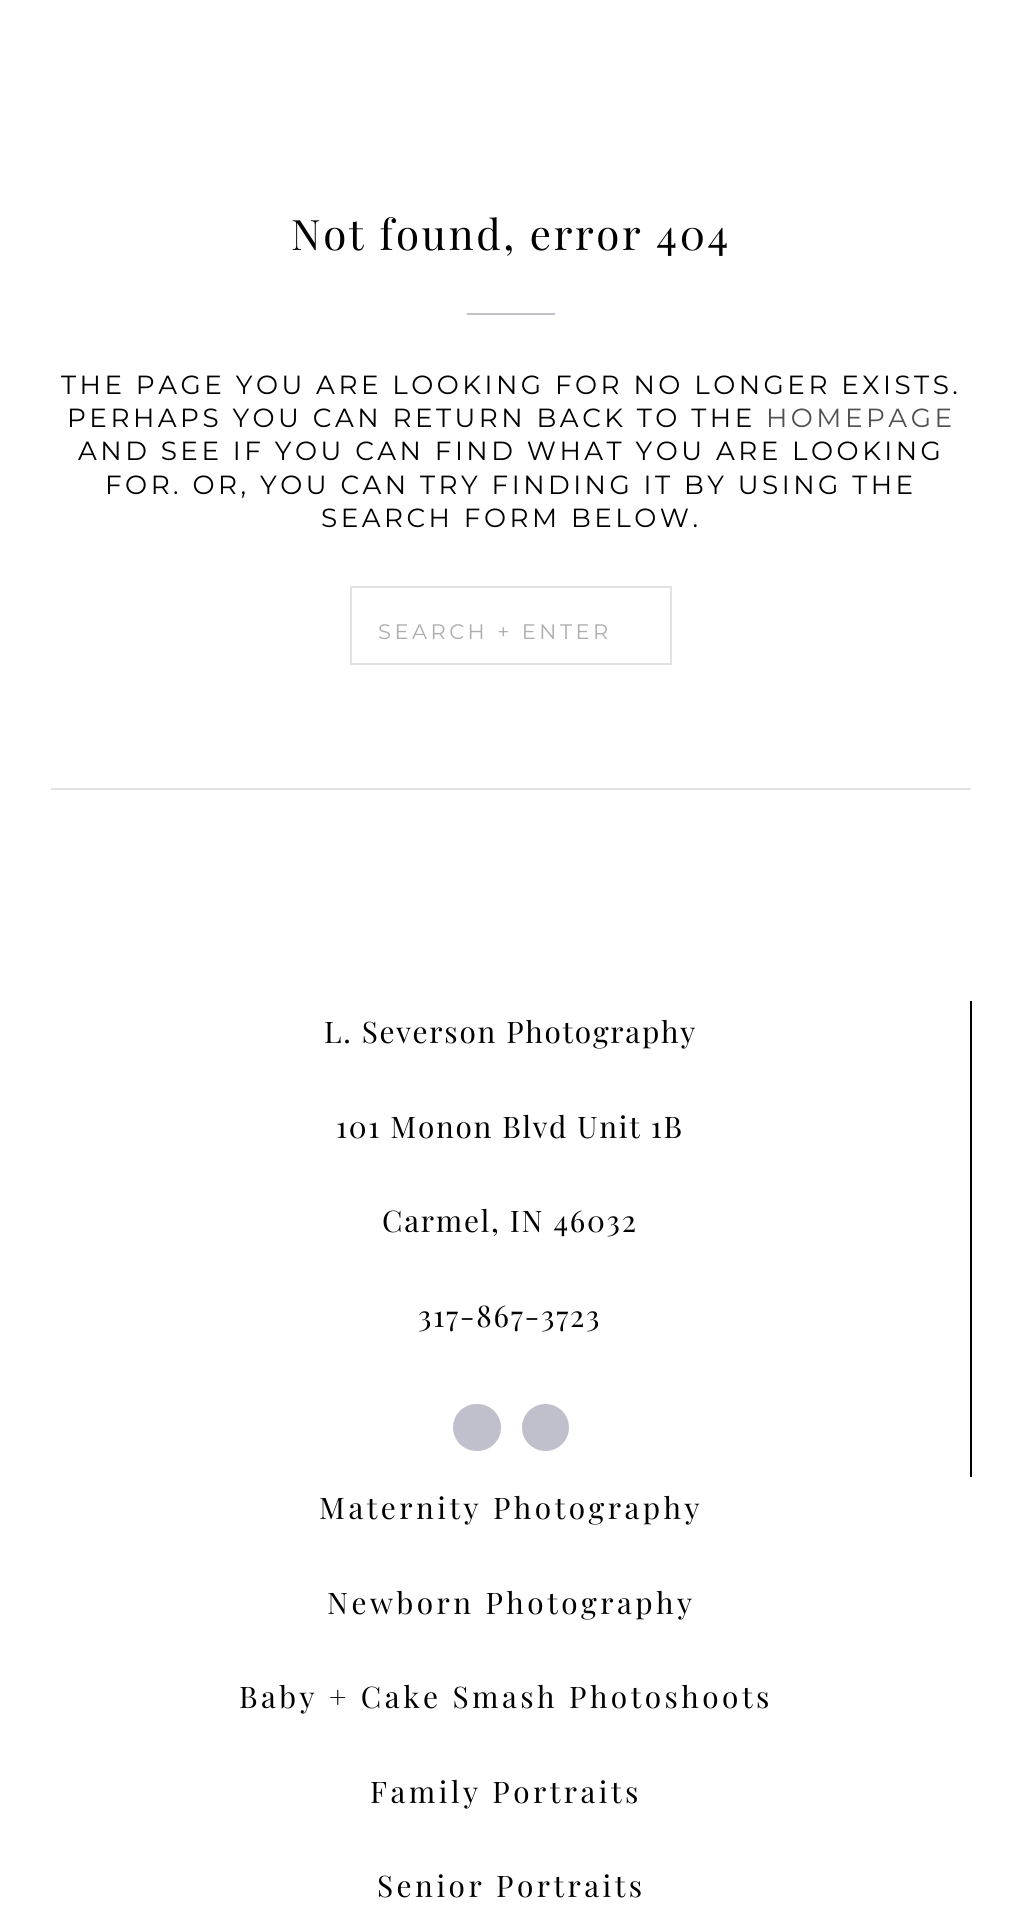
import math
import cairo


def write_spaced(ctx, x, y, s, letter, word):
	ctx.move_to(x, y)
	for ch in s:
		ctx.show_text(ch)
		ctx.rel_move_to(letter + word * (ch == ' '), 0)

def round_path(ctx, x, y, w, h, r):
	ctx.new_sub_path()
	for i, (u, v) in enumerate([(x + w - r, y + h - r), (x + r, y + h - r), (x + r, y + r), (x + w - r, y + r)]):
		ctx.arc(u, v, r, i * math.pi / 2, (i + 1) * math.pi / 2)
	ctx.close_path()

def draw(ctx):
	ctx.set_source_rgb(1, 1, 1)
	ctx.paint()
	ctx.set_source_rgb(0.89, 0.89, 0.89)
	ctx.rectangle(51, 788, 920, 2)
	ctx.fill()
	ctx.select_font_face('Playfair Display')
	ctx.set_font_size(42)
	ctx.set_source_rgb(0, 0, 0)
	write_spaced(ctx, 291, 250, 'Not found, error 404', 2.6, 0)
	ctx.set_source_rgb(0.749, 0.753, 0.8)
	ctx.rectangle(467, 313, 88, 2)
	ctx.fill()
	ctx.select_font_face('Montserrat')
	ctx.set_font_size(26.25)
	ctx.set_source_rgb(0, 0, 0)
	write_spaced(ctx, 61, 394, 'THE PAGE YOU ARE LOOKING FOR NO LONGER EXISTS.', 3.5, 0)
	write_spaced(ctx, 67, 427, 'PERHAPS YOU CAN RETURN BACK TO THE', 3.5, 0)
	ctx.set_source_rgb(0.318, 0.318, 0.318)
	write_spaced(ctx, 766, 427, 'HOMEPAGE', 3.5, 0)
	ctx.set_source_rgb(0, 0, 0)
	for x, y, s in [
		(78, 460, 'AND SEE IF YOU CAN FIND WHAT YOU ARE LOOKING'),
		(105, 494, 'FOR. OR, YOU CAN TRY FINDING IT BY USING THE'),
		(321, 527, 'SEARCH FORM BELOW.'),
	]:
		write_spaced(ctx, x, y, s, 3.5, 0)
	ctx.rectangle(351, 587, 320, 77)
	ctx.set_source_rgb(0.89, 0.89, 0.89)
	ctx.stroke()
	ctx.set_font_size(21)
	ctx.set_source_rgb(0.678, 0.678, 0.678)
	write_spaced(ctx, 378, 639, 'SEARCH + ENTER', 3.5, 0)
	ctx.set_source_rgb(0, 0, 0)
	ctx.rectangle(970, 1001, 2, 476)
	ctx.fill()
	ctx.select_font_face('Playfair Display')
	ctx.set_font_size(29.75)
	for x, y, s in [
		(324, 1043, 'L. Severson Photography'),
		(336, 1138, '101 Monon Blvd Unit 1B'),
		(382, 1232, 'Carmel, IN 46032'),
		(418, 1327, '317-867-3723'),
	]:
		write_spaced(ctx, x, y, s, 1.75, 0)
	ctx.set_source_rgb(0.749, 0.753, 0.8)
	round_path(ctx, 453, 1404, 48, 47, 23.5)
	ctx.fill()
	ctx.arc(545.5, 1427.5, 23.5, 0, 2 * math.pi)
	ctx.fill()
	ctx.set_source_rgb(0, 0, 0)
	for x, y, s in [
		(319, 1519, 'Maternity Photography'),
		(327, 1614, 'Newborn Photography'),
		(239, 1708, 'Baby + Cake Smash Photoshoots'),
		(370, 1803, 'Family Portraits'),
		(377, 1897, 'Senior Portraits'),
	]:
		write_spaced(ctx, x, y, s, 3.5, 0)


surface = cairo.ImageSurface(cairo.FORMAT_RGB24, 1022, 1932)
ctx = cairo.Context(surface)
options = cairo.FontOptions()
options.set_hint_metrics(cairo.HINT_METRICS_OFF)
options.set_hint_style(cairo.HINT_STYLE_NONE)
ctx.set_font_options(options)
ctx.set_miter_limit(4)
draw(ctx)
surface.write_to_png('image.png')
